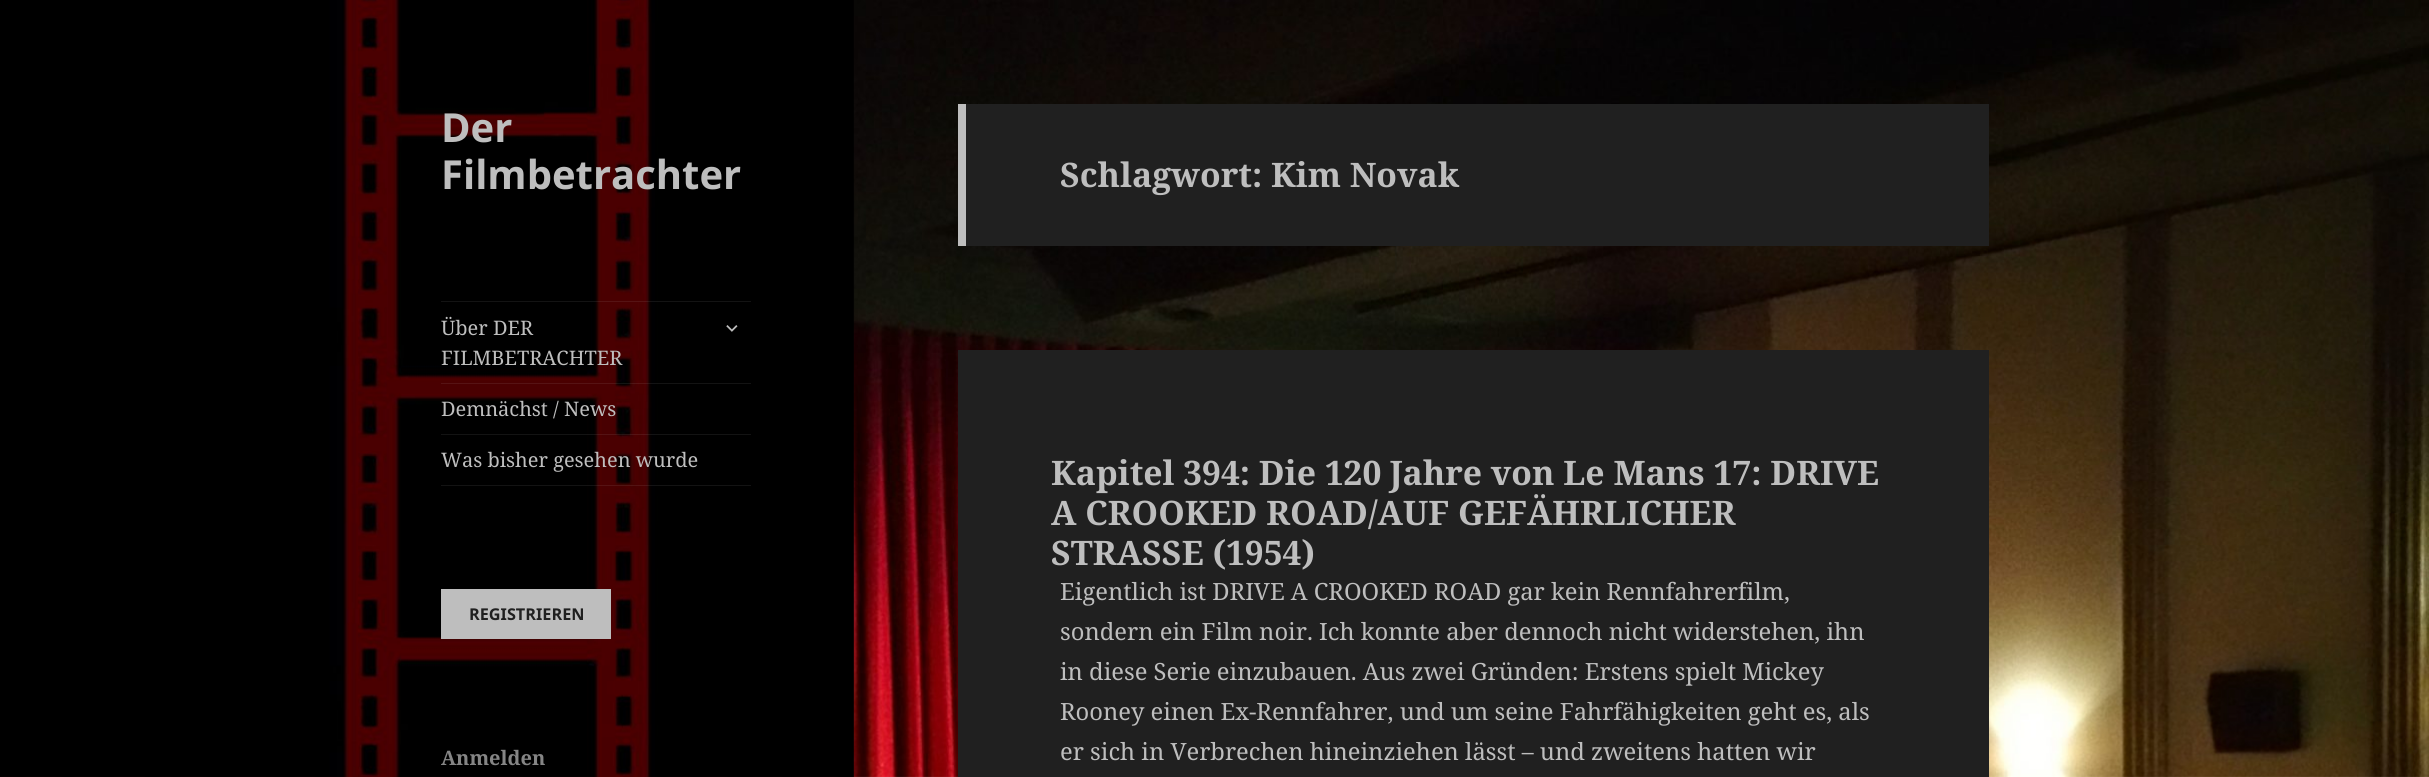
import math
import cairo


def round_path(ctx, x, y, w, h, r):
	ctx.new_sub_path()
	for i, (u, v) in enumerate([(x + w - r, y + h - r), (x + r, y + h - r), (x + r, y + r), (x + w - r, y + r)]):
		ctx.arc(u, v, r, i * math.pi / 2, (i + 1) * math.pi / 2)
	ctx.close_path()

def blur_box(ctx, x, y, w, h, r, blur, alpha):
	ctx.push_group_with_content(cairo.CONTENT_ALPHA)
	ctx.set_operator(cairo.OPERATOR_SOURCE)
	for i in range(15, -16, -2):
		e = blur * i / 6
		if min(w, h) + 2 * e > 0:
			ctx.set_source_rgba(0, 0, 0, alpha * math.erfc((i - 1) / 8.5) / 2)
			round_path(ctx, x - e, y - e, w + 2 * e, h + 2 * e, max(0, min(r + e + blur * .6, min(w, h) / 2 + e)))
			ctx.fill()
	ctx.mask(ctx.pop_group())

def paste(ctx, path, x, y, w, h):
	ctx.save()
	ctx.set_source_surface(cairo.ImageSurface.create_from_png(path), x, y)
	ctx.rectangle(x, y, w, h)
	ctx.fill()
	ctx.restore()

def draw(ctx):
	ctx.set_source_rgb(1, 1, 1)
	ctx.paint()
	paste(ctx, 'media/1.png', 0, 0, 2429, 777)
	ctx.set_source_rgb(0, 0, 0)
	blur_box(ctx, 0, 0, 854, 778, 0, 0.5, 0.15)
	paste(ctx, 'media/2.png', 0, 0, 854, 777)
	ctx.select_font_face('Noto Sans', cairo.FONT_SLANT_NORMAL, cairo.FONT_WEIGHT_BOLD)
	ctx.set_font_size(40)
	ctx.set_source_rgb(0.745, 0.745, 0.745)
	ctx.move_to(441, 142)
	ctx.show_text('Der')
	ctx.move_to(441, 189)
	ctx.show_text('Filmbetrachter')
	ctx.set_source_rgba(0.745, 0.745, 0.745, 0.1)
	ctx.rectangle(441, 301, 310, 1)
	ctx.fill()
	ctx.rectangle(441, 485, 310, 1)
	ctx.fill()
	ctx.select_font_face('Noto Serif')
	ctx.set_font_size(20)
	ctx.set_source_rgb(0.745, 0.745, 0.745)
	ctx.move_to(441, 335)
	ctx.show_text('Über DER')
	ctx.move_to(441, 365)
	ctx.show_text('FILMBETRACHTER')
	paste(ctx, 'media/3.png', 726, 325, 12, 7)
	ctx.set_source_rgba(0.745, 0.745, 0.745, 0.1)
	ctx.rectangle(441, 383, 310, 1)
	ctx.fill()
	ctx.set_source_rgb(0.745, 0.745, 0.745)
	ctx.move_to(441, 416)
	ctx.show_text('Demnächst / News')
	ctx.set_source_rgba(0.745, 0.745, 0.745, 0.1)
	ctx.rectangle(441, 434, 310, 1)
	ctx.fill()
	ctx.set_source_rgb(0.745, 0.745, 0.745)
	ctx.move_to(441, 467)
	ctx.show_text('Was bisher gesehen wurde')
	ctx.rectangle(441, 589, 170, 50)
	ctx.fill()
	ctx.select_font_face('Noto Sans', cairo.FONT_SLANT_NORMAL, cairo.FONT_WEIGHT_BOLD)
	ctx.set_font_size(16.25)
	ctx.set_source_rgb(0.125, 0.125, 0.125)
	ctx.move_to(469, 620)
	ctx.show_text('REGISTRIEREN')
	ctx.select_font_face('Noto Serif', cairo.FONT_SLANT_NORMAL, cairo.FONT_WEIGHT_BOLD)
	ctx.set_font_size(20)
	ctx.set_source_rgb(0.522, 0.522, 0.522)
	ctx.move_to(441, 765)
	ctx.show_text('Anmelden')
	ctx.set_source_rgb(0.125, 0.125, 0.125)
	ctx.rectangle(966, 104, 1023, 142)
	ctx.fill()
	ctx.set_source_rgb(0.745, 0.745, 0.745)
	ctx.rectangle(958, 104, 8, 142)
	ctx.fill()
	ctx.set_font_size(33.75)
	ctx.move_to(1060, 187)
	ctx.show_text('Schlagwort: Kim Novak')
	ctx.set_source_rgb(0.125, 0.125, 0.125)
	ctx.rectangle(958, 350, 1031, 427)
	ctx.fill()
	ctx.set_source_rgb(0.745, 0.745, 0.745)
	for x, y, s in [
		(1051, 485, 'Kapitel 394: Die 120 Jahre von Le Mans 17: DRIVE'),
		(1051, 525, 'A CROOKED ROAD/AUF GEFÄHRLICHER'),
		(1051, 565, 'STRASSE (1954)'),
	]:
		ctx.move_to(x, y)
		ctx.show_text(s)
	ctx.select_font_face('Noto Serif')
	ctx.set_font_size(23.75)
	for x, y, s in [
		(1060, 600, 'Eigentlich ist DRIVE A CROOKED ROAD gar kein Rennfahrerfilm,'),
		(1060, 640, 'sondern ein Film noir. Ich konnte aber dennoch nicht widerstehen, ihn'),
		(1060, 680, 'in diese Serie einzubauen. Aus zwei Gründen: Erstens spielt Mickey'),
		(1060, 720, 'Rooney einen Ex-Rennfahrer, und um seine Fahrfähigkeiten geht es, als'),
		(1060, 760, 'er sich in Verbrechen hineinziehen lässt – und zweitens hatten wir'),
	]:
		ctx.move_to(x, y)
		ctx.show_text(s)


surface = cairo.ImageSurface(cairo.FORMAT_RGB24, 2429, 777)
ctx = cairo.Context(surface)
options = cairo.FontOptions()
options.set_hint_metrics(cairo.HINT_METRICS_OFF)
options.set_hint_style(cairo.HINT_STYLE_NONE)
ctx.set_font_options(options)
ctx.set_miter_limit(4)
draw(ctx)
surface.write_to_png('image.png')
